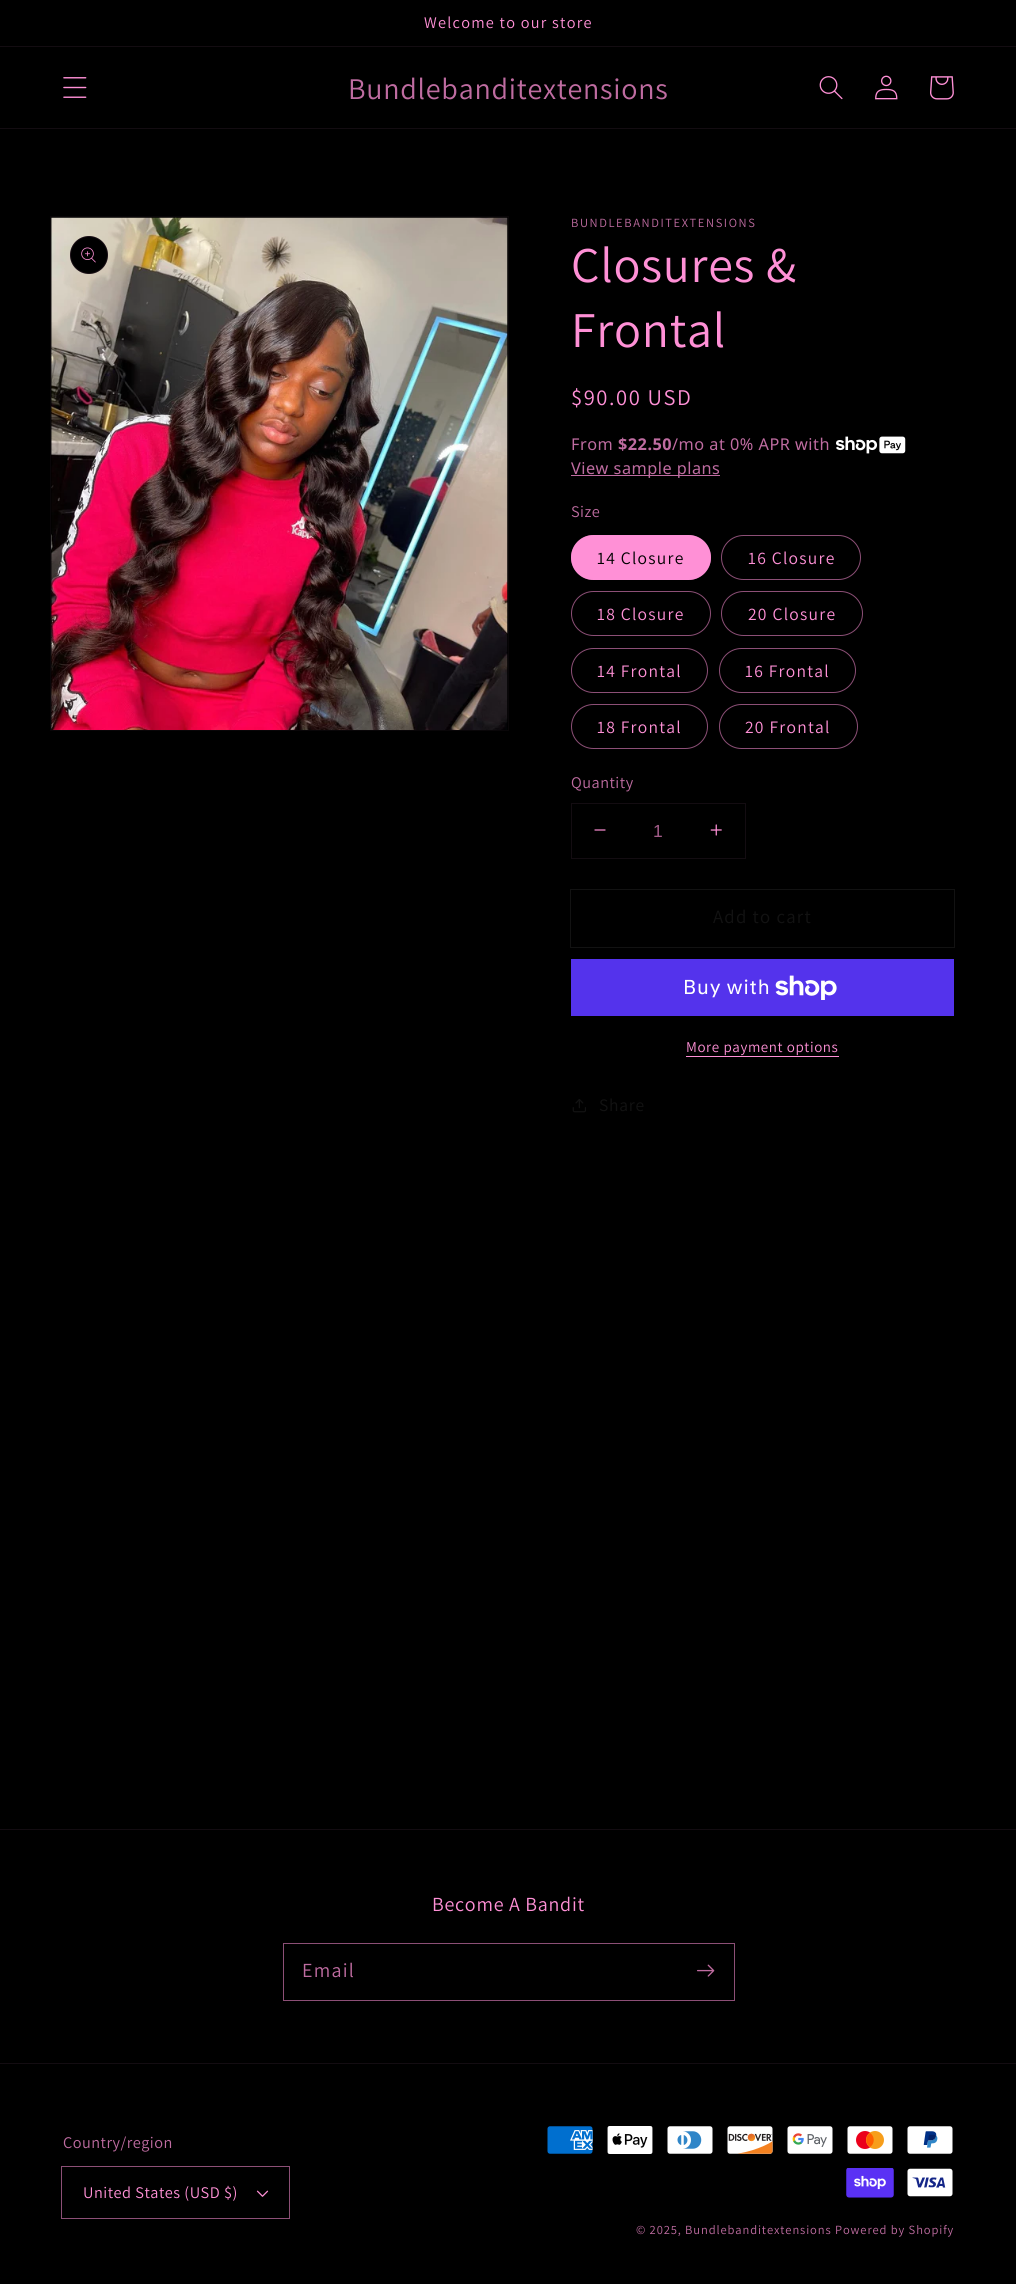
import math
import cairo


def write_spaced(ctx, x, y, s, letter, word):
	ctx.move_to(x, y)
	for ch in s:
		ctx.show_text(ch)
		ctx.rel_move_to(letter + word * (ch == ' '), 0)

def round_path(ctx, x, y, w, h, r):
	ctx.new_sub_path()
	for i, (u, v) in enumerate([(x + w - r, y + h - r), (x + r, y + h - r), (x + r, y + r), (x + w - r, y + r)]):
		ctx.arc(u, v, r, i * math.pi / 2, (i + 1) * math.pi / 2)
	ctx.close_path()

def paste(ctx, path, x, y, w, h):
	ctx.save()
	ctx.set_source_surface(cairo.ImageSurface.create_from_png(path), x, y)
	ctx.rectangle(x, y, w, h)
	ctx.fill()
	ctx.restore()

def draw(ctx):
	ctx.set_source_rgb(0, 0, 0)
	ctx.paint()
	ctx.set_source_rgb(0.078, 0.047, 0.067)
	ctx.rectangle(0, 46, 1016, 1)
	ctx.fill()
	ctx.select_font_face('Assistant')
	ctx.set_font_size(16.25)
	ctx.set_source_rgb(1, 0.565, 0.839)
	write_spaced(ctx, 424, 28, 'Welcome to our store', 1.25, 0)
	ctx.set_source_rgb(0.078, 0.047, 0.067)
	ctx.rectangle(0, 128, 1016, 1)
	ctx.fill()
	paste(ctx, 'media/1.png', 63, 77, 24, 21)
	ctx.set_font_size(30)
	ctx.set_source_rgb(0.749, 0.424, 0.631)
	write_spaced(ctx, 348, 99, 'Bundlebanditextensions', 0.75, 0)
	paste(ctx, 'media/2.png', 819, 76, 24, 24)
	paste(ctx, 'media/3.png', 875, 75, 23, 25)
	paste(ctx, 'media/4.png', 930, 76, 24, 24)
	ctx.rectangle(50.5, 216.5, 458, 514)
	ctx.set_source_rgb(0.039, 0.024, 0.035)
	ctx.set_line_width(1)
	ctx.stroke()
	paste(ctx, 'media/5.png', 51, 217, 457, 513)
	ctx.set_source_rgb(0, 0, 0)
	ctx.arc(89, 255, 19, 0, 2 * math.pi)
	ctx.fill()
	ctx.arc(89, 255, 18.5, 0, 2 * math.pi)
	ctx.set_source_rgba(1, 0.565, 0.839, 0.1)
	ctx.stroke()
	paste(ctx, 'media/6.png', 81, 247, 15, 16)
	ctx.set_font_size(12.5)
	ctx.set_source_rgb(0.749, 0.424, 0.631)
	write_spaced(ctx, 571, 227, 'BUNDLEBANDITEXTENSIONS', 1.6, 0)
	ctx.set_font_size(50)
	ctx.set_source_rgb(1, 0.565, 0.839)
	write_spaced(ctx, 571, 282, 'Closures &', 0.75, 0)
	write_spaced(ctx, 571, 347, 'Frontal', 0.75, 0)
	ctx.set_font_size(22.5)
	write_spaced(ctx, 571, 405, '$90.00 USD', 1.6, 0)
	ctx.select_font_face('Noto Sans')
	ctx.set_font_size(16.25)
	ctx.set_source_rgb(0.749, 0.424, 0.631)
	write_spaced(ctx, 571, 450, 'From', 0.5, 0)
	ctx.select_font_face('Noto Sans', cairo.FONT_SLANT_NORMAL, cairo.FONT_WEIGHT_BOLD)
	write_spaced(ctx, 618, 450, '$22.50', 0.5, 0)
	ctx.select_font_face('Noto Sans')
	write_spaced(ctx, 672, 450, '/mo at 0% APR with', 0.5, 0)
	paste(ctx, 'media/7.png', 836, 436, 70, 18)
	ctx.rectangle(571, 475, 149, 1)
	ctx.fill()
	write_spaced(ctx, 571, 474, 'View sample plans', 0.5, 0)
	ctx.select_font_face('Assistant')
	write_spaced(ctx, 571, 517, 'Size', 0.5, 0)
	ctx.set_source_rgb(1, 0.565, 0.839)
	round_path(ctx, 571, 535, 140, 45, 22.5)
	ctx.fill()
	round_path(ctx, 571.5, 535.5, 139, 44, 22)
	ctx.set_source_rgba(1, 0.565, 0.839, 0.55)
	ctx.stroke()
	ctx.set_font_size(17.5)
	ctx.set_source_rgb(0, 0, 0)
	write_spaced(ctx, 597, 564, '14 Closure', 1.25, 0)
	round_path(ctx, 721.5, 535.5, 139, 44, 22)
	ctx.set_source_rgb(0.549, 0.31, 0.463)
	ctx.stroke()
	ctx.set_source_rgb(1, 0.565, 0.839)
	write_spaced(ctx, 748, 564, '16 Closure', 1.25, 0)
	round_path(ctx, 571.5, 591.5, 139, 44, 22)
	ctx.set_source_rgb(0.549, 0.31, 0.463)
	ctx.stroke()
	ctx.set_source_rgb(1, 0.565, 0.839)
	write_spaced(ctx, 597, 620, '18 Closure', 1.25, 0)
	round_path(ctx, 721.5, 591.5, 141, 44, 22)
	ctx.set_source_rgb(0.549, 0.31, 0.463)
	ctx.stroke()
	ctx.set_source_rgb(1, 0.565, 0.839)
	write_spaced(ctx, 748, 620, '20 Closure', 1.25, 0)
	round_path(ctx, 571.5, 648.5, 136, 44, 22)
	ctx.set_source_rgb(0.549, 0.31, 0.463)
	ctx.stroke()
	ctx.set_source_rgb(1, 0.565, 0.839)
	write_spaced(ctx, 597, 677, '14 Frontal', 1.25, 0)
	round_path(ctx, 719.5, 648.5, 136, 44, 22)
	ctx.set_source_rgb(0.549, 0.31, 0.463)
	ctx.stroke()
	ctx.set_source_rgb(1, 0.565, 0.839)
	write_spaced(ctx, 745, 677, '16 Frontal', 1.25, 0)
	round_path(ctx, 571.5, 704.5, 136, 44, 22)
	ctx.set_source_rgb(0.549, 0.31, 0.463)
	ctx.stroke()
	ctx.set_source_rgb(1, 0.565, 0.839)
	write_spaced(ctx, 597, 733, '18 Frontal', 1.25, 0)
	round_path(ctx, 719.5, 704.5, 138, 44, 22)
	ctx.set_source_rgb(0.549, 0.31, 0.463)
	ctx.stroke()
	ctx.set_source_rgb(1, 0.565, 0.839)
	write_spaced(ctx, 745, 733, '20 Frontal', 1.25, 0)
	ctx.set_font_size(16.25)
	ctx.set_source_rgb(0.749, 0.424, 0.631)
	write_spaced(ctx, 571, 788, 'Quantity', 0.5, 0)
	ctx.rectangle(571.5, 803.5, 174, 55)
	ctx.set_source_rgb(0.078, 0.047, 0.067)
	ctx.stroke()
	paste(ctx, 'media/8.png', 594, 829, 12, 2)
	ctx.select_font_face('Liberation Sans')
	ctx.set_font_size(17.5)
	ctx.set_source_rgb(0.639, 0.361, 0.537)
	ctx.move_to(653, 837)
	ctx.show_text('1')
	paste(ctx, 'media/9.png', 710, 824, 12, 12)
	ctx.rectangle(570.5, 889.5, 384, 58)
	ctx.set_source_rgb(0.071, 0.071, 0.071)
	ctx.stroke()
	ctx.select_font_face('Assistant')
	ctx.set_font_size(18.75)
	write_spaced(ctx, 713, 923, 'Add to cart', 1.25, 0)
	ctx.set_source_rgb(0.329, 0.2, 0.922)
	ctx.rectangle(571, 959, 383, 57)
	ctx.fill()
	ctx.select_font_face('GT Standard')
	ctx.set_font_size(20)
	ctx.set_source_rgb(1, 1, 1)
	write_spaced(ctx, 683, 994, 'Buy with', 0.75, 0)
	paste(ctx, 'media/10.png', 775, 975, 62, 25)
	ctx.select_font_face('Assistant')
	ctx.set_font_size(15)
	ctx.set_source_rgb(1, 0.565, 0.839)
	write_spaced(ctx, 686, 1052, 'More payment options', 0.6, 0)
	ctx.rectangle(686, 1056, 153, 1)
	ctx.fill()
	paste(ctx, 'media/11.png', 572, 1099, 14, 14)
	ctx.set_font_size(17.5)
	ctx.set_source_rgb(0.071, 0.071, 0.071)
	write_spaced(ctx, 599, 1111, 'Share', 0.75, 0)
	ctx.set_source_rgb(0.078, 0.047, 0.067)
	ctx.rectangle(0, 1829, 1016, 1)
	ctx.fill()
	ctx.set_font_size(20)
	ctx.set_source_rgb(1, 0.565, 0.839)
	write_spaced(ctx, 432, 1911, 'Become A Bandit', 0.75, 0)
	ctx.rectangle(283.5, 1943.5, 451, 57)
	ctx.set_source_rgb(0.549, 0.31, 0.463)
	ctx.stroke()
	ctx.set_source_rgb(0.749, 0.424, 0.631)
	write_spaced(ctx, 302, 1977, 'Email', 1.25, 0)
	paste(ctx, 'media/12.png', 697, 1964, 18, 13)
	ctx.set_source_rgb(0.078, 0.047, 0.067)
	ctx.rectangle(0, 2063, 1016, 1)
	ctx.fill()
	ctx.set_font_size(16.25)
	ctx.set_source_rgb(0.749, 0.424, 0.631)
	write_spaced(ctx, 63, 2148, 'Country/region', 0.5, 0)
	ctx.rectangle(61.5, 2166.5, 228, 52)
	ctx.set_source_rgb(0.549, 0.31, 0.463)
	ctx.stroke()
	ctx.set_source_rgb(1, 0.565, 0.839)
	write_spaced(ctx, 83, 2198, 'United States (USD $)', 0.5, 0)
	paste(ctx, 'media/13.png', 256, 2190, 13, 7)
	paste(ctx, 'media/14.png', 547, 2126, 46, 28)
	paste(ctx, 'media/15.png', 607, 2126, 46, 28)
	paste(ctx, 'media/16.png', 667, 2126, 46, 28)
	paste(ctx, 'media/17.png', 727, 2126, 46, 28)
	paste(ctx, 'media/18.png', 787, 2126, 46, 28)
	paste(ctx, 'media/19.png', 847, 2126, 46, 28)
	paste(ctx, 'media/20.png', 907, 2126, 46, 28)
	paste(ctx, 'media/21.png', 846, 2168, 48, 30)
	paste(ctx, 'media/22.png', 907, 2168, 46, 29)
	ctx.set_font_size(12.5)
	ctx.set_source_rgb(0.749, 0.424, 0.631)
	write_spaced(ctx, 636, 2234, '© 2025, Bundlebanditextensions', 0.9, 0)
	write_spaced(ctx, 835, 2234, 'Powered by Shopify', 0.9, 0)


surface = cairo.ImageSurface(cairo.FORMAT_RGB24, 1016, 2284)
ctx = cairo.Context(surface)
options = cairo.FontOptions()
options.set_hint_metrics(cairo.HINT_METRICS_OFF)
options.set_hint_style(cairo.HINT_STYLE_NONE)
ctx.set_font_options(options)
ctx.set_miter_limit(4)
draw(ctx)
surface.write_to_png('image.png')
